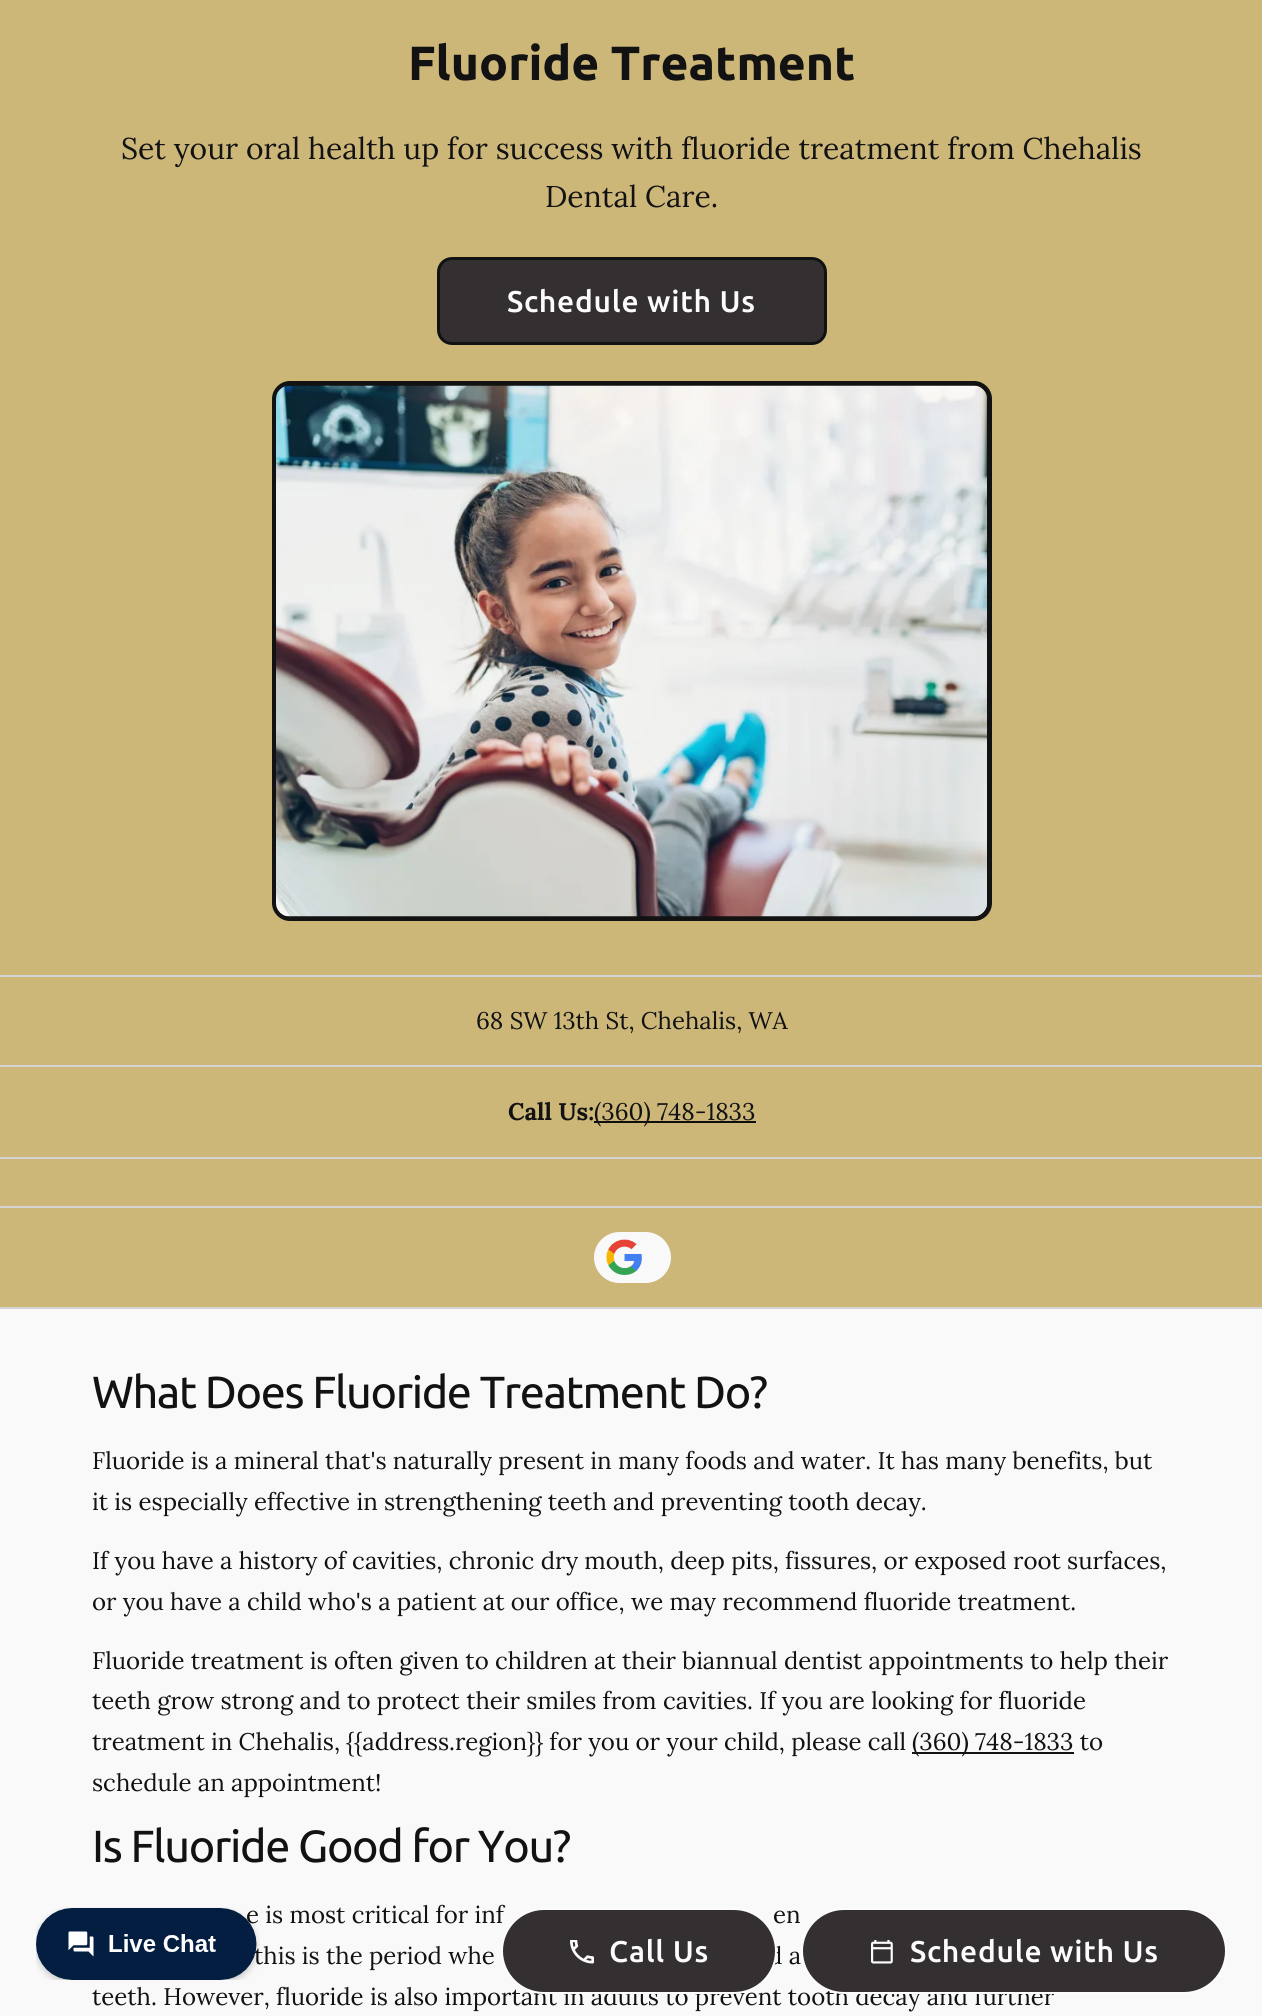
import math
import cairo


def write_spaced(ctx, x, y, s, letter, word):
	ctx.move_to(x, y)
	for ch in s:
		ctx.show_text(ch)
		ctx.rel_move_to(letter + word * (ch == ' '), 0)

def round_path(ctx, x, y, w, h, r):
	ctx.new_sub_path()
	for i, (u, v) in enumerate([(x + w - r, y + h - r), (x + r, y + h - r), (x + r, y + r), (x + w - r, y + r)]):
		ctx.arc(u, v, r, i * math.pi / 2, (i + 1) * math.pi / 2)
	ctx.close_path()

def paste(ctx, path, x, y, w, h):
	ctx.save()
	ctx.set_source_surface(cairo.ImageSurface.create_from_png(path), x, y)
	ctx.rectangle(x, y, w, h)
	ctx.fill()
	ctx.restore()

def draw(ctx):
	ctx.set_source_rgb(0.976, 0.976, 0.976)
	ctx.paint()
	ctx.set_source_rgb(0.8, 0.718, 0.475)
	ctx.rectangle(0, 0, 1262, 975)
	ctx.fill()
	ctx.select_font_face('Ubuntu', cairo.FONT_SLANT_NORMAL, cairo.FONT_WEIGHT_BOLD)
	ctx.set_font_size(48)
	ctx.set_source_rgb(0.071, 0.071, 0.071)
	ctx.move_to(408, 80)
	ctx.show_text('Fluoride Treatment')
	ctx.select_font_face('Lora')
	ctx.set_font_size(30)
	ctx.move_to(121, 159)
	ctx.show_text('Set your oral health up for success with fluoride treatment from Chehalis')
	ctx.move_to(545, 207)
	ctx.show_text('Dental Care.')
	ctx.set_source_rgb(0.204, 0.184, 0.188)
	round_path(ctx, 438.5, 258.5, 387, 85, 13.5)
	ctx.fill_preserve()
	ctx.set_source_rgb(0.071, 0.071, 0.071)
	ctx.set_line_width(3)
	ctx.stroke()
	ctx.select_font_face('Ubuntu Medium')
	ctx.set_source_rgb(0.988, 0.988, 0.988)
	write_spaced(ctx, 507, 312, 'Schedule with Us', 0.75, 0)
	round_path(ctx, 274.5, 383.5, 715, 535, 15.5)
	ctx.set_source_rgb(0.071, 0.071, 0.071)
	ctx.set_line_width(5)
	ctx.stroke()
	paste(ctx, 'media/1.png', 276, 385, 711, 532)
	ctx.set_source_rgb(0.8, 0.718, 0.475)
	ctx.rectangle(0, 977, 1262, 330)
	ctx.fill()
	ctx.set_source_rgb(0.831, 0.831, 0.831)
	ctx.rectangle(0, 975, 1262, 2)
	ctx.rectangle(0, 1307, 1262, 2)
	ctx.fill()
	ctx.select_font_face('Lora')
	ctx.set_font_size(24)
	ctx.set_source_rgb(0.071, 0.071, 0.071)
	ctx.move_to(476, 1029)
	ctx.show_text('68 SW 13th St, Chehalis, WA')
	ctx.set_source_rgb(0.831, 0.831, 0.831)
	ctx.rectangle(0, 1065, 1262, 2)
	ctx.fill()
	ctx.select_font_face('Lora', cairo.FONT_SLANT_NORMAL, cairo.FONT_WEIGHT_BOLD)
	ctx.set_source_rgb(0.071, 0.071, 0.071)
	ctx.move_to(508, 1120)
	ctx.show_text('Call Us:')
	ctx.set_source_rgb(0.059, 0.059, 0.059)
	ctx.rectangle(594, 1121, 162, 2)
	ctx.fill()
	ctx.select_font_face('Lora')
	ctx.set_source_rgb(0.071, 0.071, 0.071)
	ctx.move_to(594, 1120)
	ctx.show_text('(360) 748-1833')
	ctx.set_source_rgb(0.831, 0.831, 0.831)
	ctx.rectangle(0, 1157, 1262, 2)
	ctx.fill()
	ctx.rectangle(0, 1206, 1262, 2)
	ctx.fill()
	ctx.set_source_rgb(0.976, 0.976, 0.976)
	round_path(ctx, 594, 1232, 77, 51, 25.5)
	ctx.fill()
	paste(ctx, 'media/2.png', 606, 1239, 36, 36)
	ctx.select_font_face('Ubuntu')
	ctx.set_font_size(45)
	ctx.set_source_rgb(0.071, 0.071, 0.071)
	write_spaced(ctx, 92, 1408, 'What Does Fluoride Treatment Do?', -1.35, 0)
	ctx.select_font_face('Lora')
	ctx.set_font_size(24)
	for x, y, s in [
		(92, 1469, 'Fluoride is a mineral that\'s naturally present in many foods and water. It has many benefits, but'),
		(92, 1510, 'it is especially effective in strengthening teeth and preventing tooth decay.'),
		(92, 1569, 'If you have a history of cavities, chronic dry mouth, deep pits, fissures, or exposed root surfaces,'),
		(92, 1610, 'or you have a child who\'s a patient at our office, we may recommend fluoride treatment.'),
		(92, 1669, 'Fluoride treatment is often given to children at their biannual dentist appointments to help their'),
		(92, 1709, 'teeth grow strong and to protect their smiles from cavities. If you are looking for fluoride'),
		(92, 1750, 'treatment in Chehalis, {{address.region}} for you or your child, please call'),
	]:
		ctx.move_to(x, y)
		ctx.show_text(s)
	ctx.rectangle(912, 1752, 162, 2)
	ctx.fill()
	ctx.move_to(912, 1750)
	ctx.show_text('(360) 748-1833 to')
	ctx.move_to(92, 1791)
	ctx.show_text('schedule an appointment!')
	ctx.select_font_face('Ubuntu')
	ctx.set_font_size(45)
	write_spaced(ctx, 92, 1862, 'Is Fluoride Good for You?', -1.35, 0)
	ctx.select_font_face('Lora')
	ctx.set_font_size(24)
	for x, y, s in [
		(246, 1923, 'e is most critical for inf'),
		(773, 1923, 'en'),
		(254, 1964, 'this is the period whe'),
		(768, 1964, 'd a'),
		(92, 2005, 'teeth. However, fluoride is also important in adults to prevent tooth decay and further'),
	]:
		ctx.move_to(x, y)
		ctx.show_text(s)
	ctx.set_source_rgb(0.204, 0.184, 0.188)
	round_path(ctx, 502, 1909, 274, 84, 42)
	ctx.fill_preserve()
	ctx.set_source_rgb(0.988, 0.988, 0.988)
	ctx.set_line_width(2)
	ctx.stroke()
	paste(ctx, 'media/3.png', 570, 1940, 24, 24)
	ctx.select_font_face('Ubuntu Medium')
	ctx.set_font_size(30)
	write_spaced(ctx, 609, 1962, 'Call Us', 0.75, 0)
	ctx.set_source_rgb(0.204, 0.184, 0.188)
	round_path(ctx, 802, 1909, 424, 84, 42)
	ctx.fill_preserve()
	ctx.set_source_rgb(0.988, 0.988, 0.988)
	ctx.stroke()
	paste(ctx, 'media/4.png', 871, 1940, 22, 24)
	write_spaced(ctx, 910, 1962, 'Schedule with Us', 0.75, 0)
	paste(ctx, 'media/5.png', 36, 1907, 224, 73)


surface = cairo.ImageSurface(cairo.FORMAT_RGB24, 1262, 2016)
ctx = cairo.Context(surface)
options = cairo.FontOptions()
options.set_hint_metrics(cairo.HINT_METRICS_OFF)
options.set_hint_style(cairo.HINT_STYLE_NONE)
ctx.set_font_options(options)
ctx.set_miter_limit(4)
draw(ctx)
surface.write_to_png('image.png')
